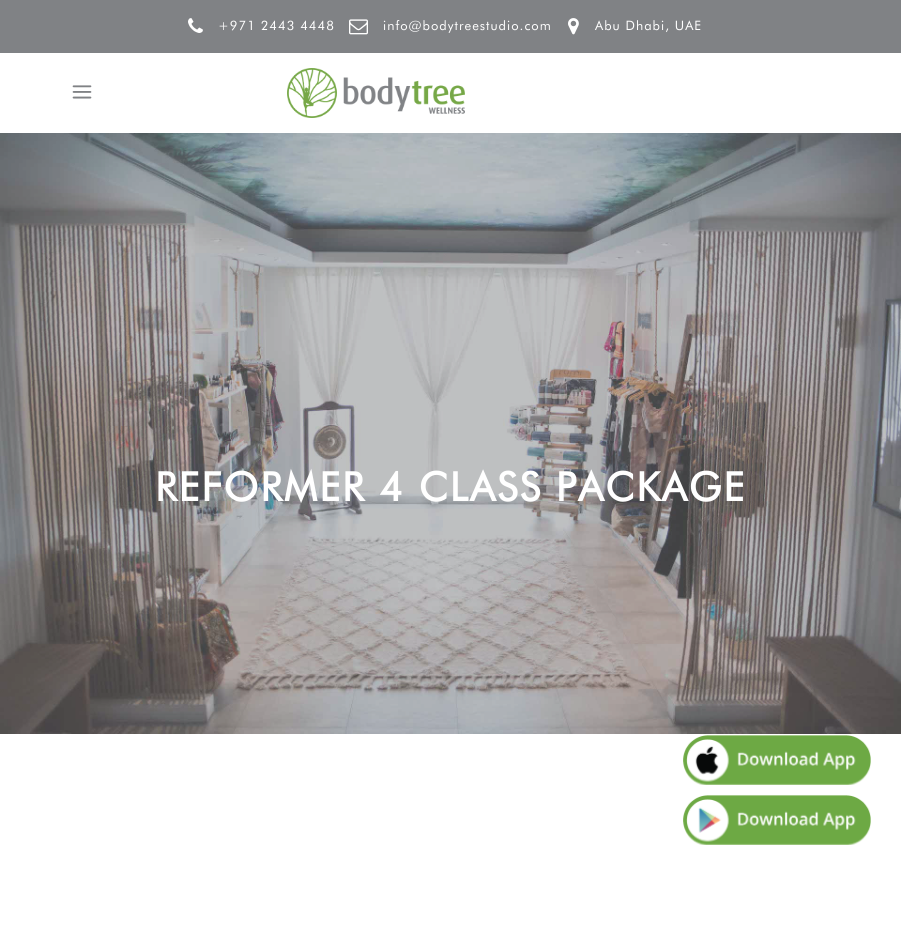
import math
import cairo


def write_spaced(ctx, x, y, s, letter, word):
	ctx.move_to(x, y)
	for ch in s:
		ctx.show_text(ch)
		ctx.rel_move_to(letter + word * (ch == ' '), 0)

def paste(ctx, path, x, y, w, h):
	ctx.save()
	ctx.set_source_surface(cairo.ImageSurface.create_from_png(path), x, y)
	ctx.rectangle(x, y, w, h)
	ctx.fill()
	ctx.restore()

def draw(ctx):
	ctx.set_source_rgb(1, 1, 1)
	ctx.paint()
	ctx.set_source_rgb(0.502, 0.51, 0.522)
	ctx.rectangle(0, 0, 901, 53)
	ctx.fill()
	paste(ctx, 'media/1.png', 188, 18, 15, 15)
	ctx.select_font_face('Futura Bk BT')
	ctx.set_font_size(13)
	ctx.set_source_rgb(1, 1, 1)
	write_spaced(ctx, 218, 30, '+971 2443 4448', 1, 0)
	paste(ctx, 'media/2.png', 349, 19, 19, 16)
	write_spaced(ctx, 383, 30, 'info@bodytreestudio.com', 1, 0)
	paste(ctx, 'media/3.png', 568, 18, 11, 17)
	write_spaced(ctx, 595, 30, 'Abu Dhabi, UAE', 1, 0)
	paste(ctx, 'media/4.png', 72, 85, 20, 14)
	paste(ctx, 'media/5.png', 287, 68, 178, 50)
	paste(ctx, 'media/6.png', 0, 133, 901, 601)
	ctx.select_font_face('Futura Bk BT', cairo.FONT_SLANT_NORMAL, cairo.FONT_WEIGHT_BOLD)
	ctx.set_font_size(40)
	write_spaced(ctx, 155, 501, 'REFORMER 4 CLASS PACKAGE', 2, 0)
	paste(ctx, 'media/7.png', 683, 735, 188, 50)
	paste(ctx, 'media/8.png', 683, 795, 188, 50)


surface = cairo.ImageSurface(cairo.FORMAT_RGB24, 901, 945)
ctx = cairo.Context(surface)
options = cairo.FontOptions()
options.set_hint_metrics(cairo.HINT_METRICS_OFF)
options.set_hint_style(cairo.HINT_STYLE_NONE)
ctx.set_font_options(options)
ctx.set_miter_limit(4)
draw(ctx)
surface.write_to_png('image.png')
